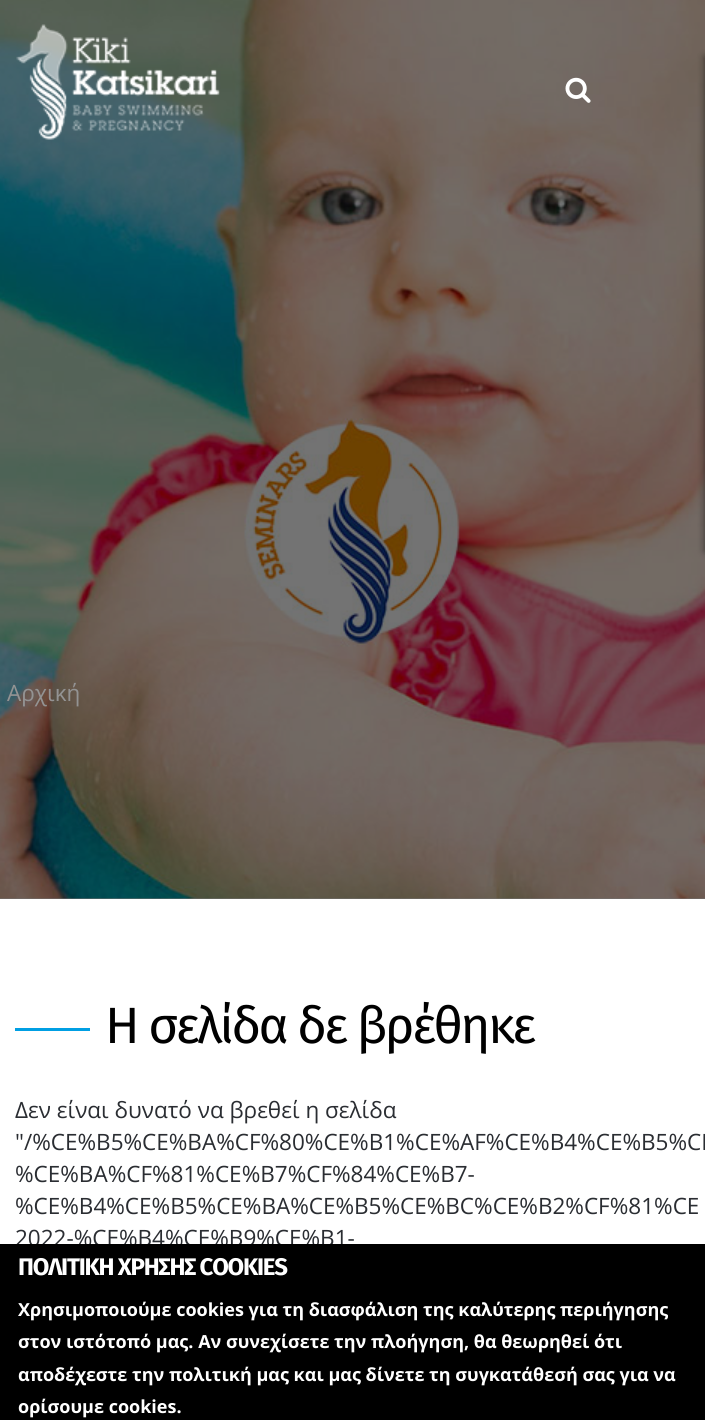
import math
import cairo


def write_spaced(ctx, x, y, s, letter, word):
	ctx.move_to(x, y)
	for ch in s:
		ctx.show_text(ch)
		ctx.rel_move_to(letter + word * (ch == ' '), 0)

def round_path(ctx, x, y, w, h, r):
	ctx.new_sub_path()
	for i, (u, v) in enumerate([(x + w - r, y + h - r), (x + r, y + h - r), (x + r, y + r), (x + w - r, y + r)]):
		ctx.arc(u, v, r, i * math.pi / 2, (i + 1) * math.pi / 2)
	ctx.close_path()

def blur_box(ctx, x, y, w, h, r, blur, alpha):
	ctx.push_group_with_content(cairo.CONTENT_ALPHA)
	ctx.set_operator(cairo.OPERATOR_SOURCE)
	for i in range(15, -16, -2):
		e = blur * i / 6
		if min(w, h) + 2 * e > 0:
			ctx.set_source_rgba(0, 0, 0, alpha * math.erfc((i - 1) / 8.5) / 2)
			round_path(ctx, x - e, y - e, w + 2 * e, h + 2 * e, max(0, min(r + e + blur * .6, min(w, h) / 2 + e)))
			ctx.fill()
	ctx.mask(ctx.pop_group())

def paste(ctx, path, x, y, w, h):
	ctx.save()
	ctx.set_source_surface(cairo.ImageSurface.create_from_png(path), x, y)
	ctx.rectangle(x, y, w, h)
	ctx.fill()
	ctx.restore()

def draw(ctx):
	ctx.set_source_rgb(1, 1, 1)
	ctx.paint()
	ctx.set_source_rgb(0.451, 0.451, 0.451)
	ctx.rectangle(0, 898, 705, 1)
	ctx.fill()
	paste(ctx, 'media/3.png', 0, 0, 705, 899)
	ctx.set_source_rgb(0, 0, 0)
	blur_box(ctx, 705, 57, 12, 494, 0, 4, 0.5)
	paste(ctx, 'media/1.png', 16, 24, 204, 116)
	paste(ctx, 'media/2.png', 565, 77, 26, 26)
	ctx.select_font_face('Open Sans')
	ctx.set_font_size(22.5)
	ctx.set_source_rgb(0.576, 0.576, 0.576)
	ctx.move_to(7, 701)
	ctx.show_text('Αρχική')
	ctx.set_source_rgb(0, 0.624, 0.89)
	ctx.rectangle(15, 1028, 75, 3)
	ctx.fill()
	ctx.select_font_face('Fira Sans')
	ctx.set_font_size(51)
	ctx.set_source_rgb(0, 0, 0)
	write_spaced(ctx, 105, 1043, 'Η σελίδα δε βρέθηκε', -2.5, 0)
	ctx.select_font_face('Open Sans')
	ctx.set_font_size(22.5)
	ctx.set_source_rgb(0.165, 0.176, 0.196)
	for x, y, s in [
		(15, 1118, 'Δεν είναι δυνατό να βρεθεί η σελίδα'),
		(15, 1150, '"/%CE%B5%CE%BA%CF%80%CE%B1%CE%AF%CE%B4%CE%B5%CF'),
		(15, 1182, '%CE%BA%CF%81%CE%B7%CF%84%CE%B7-'),
		(15, 1214, '%CE%B4%CE%B5%CE%BA%CE%B5%CE%BC%CE%B2%CF%81%CE'),
		(15, 1246, '2022-%CE%B4%CE%B9%CE%B1-'),
	]:
		ctx.move_to(x, y)
		ctx.show_text(s)
	ctx.set_source_rgb(0, 0, 0)
	ctx.rectangle(0, 1244, 705, 176)
	ctx.fill()
	ctx.select_font_face('Fira Sans', cairo.FONT_SLANT_NORMAL, cairo.FONT_WEIGHT_BOLD)
	ctx.set_font_size(24)
	ctx.set_source_rgb(1, 1, 1)
	write_spaced(ctx, 18, 1275, 'ΠΟΛΙΤΙΚΗ ΧΡΗΣΗΣ COOKIES', -1.2, 0)
	ctx.select_font_face('Open Sans', cairo.FONT_SLANT_NORMAL, cairo.FONT_WEIGHT_BOLD)
	ctx.set_font_size(18)
	for x, y, s in [
		(18, 1316, 'Χρησιμοποιούμε cookies για τη διασφάλιση της καλύτερης περιήγησης'),
		(18, 1348, 'στον ιστότοπό μας. Αν συνεχίσετε την πλοήγηση, θα θεωρηθεί ότι'),
		(18, 1381, 'αποδέχεστε την πολιτική μας και μας δίνετε τη συγκατάθεσή σας για να'),
		(18, 1413, 'ορίσουμε cookies.'),
	]:
		ctx.move_to(x, y)
		ctx.show_text(s)


surface = cairo.ImageSurface(cairo.FORMAT_RGB24, 705, 1420)
ctx = cairo.Context(surface)
options = cairo.FontOptions()
options.set_hint_metrics(cairo.HINT_METRICS_OFF)
options.set_hint_style(cairo.HINT_STYLE_NONE)
ctx.set_font_options(options)
ctx.set_miter_limit(4)
draw(ctx)
surface.write_to_png('image.png')
